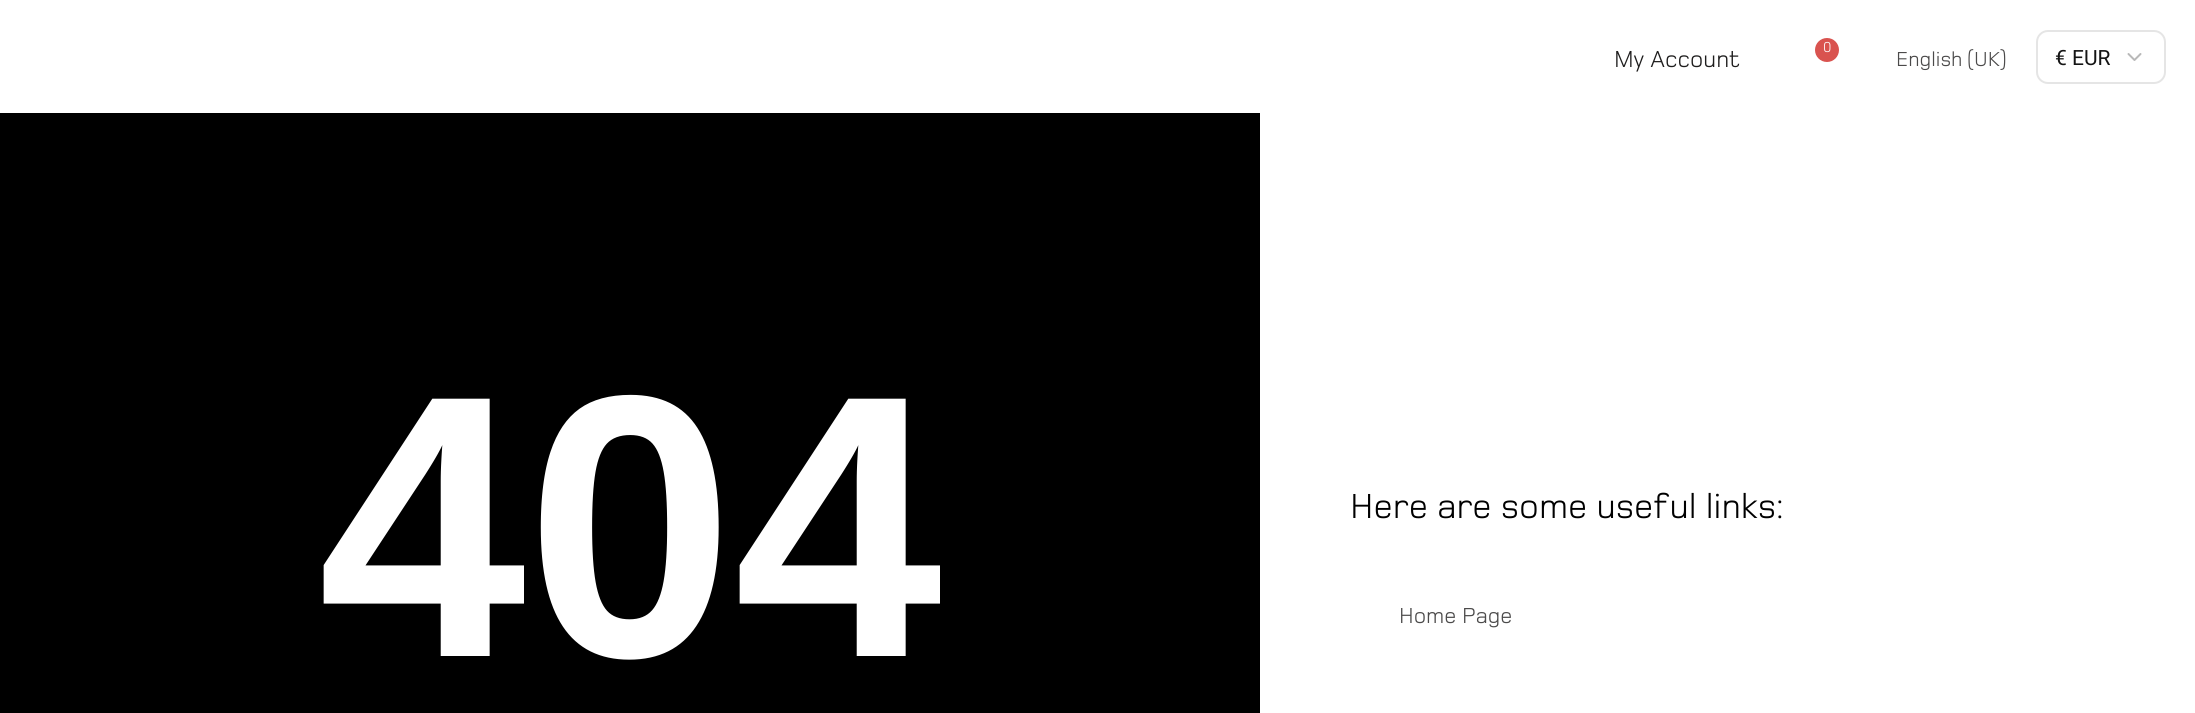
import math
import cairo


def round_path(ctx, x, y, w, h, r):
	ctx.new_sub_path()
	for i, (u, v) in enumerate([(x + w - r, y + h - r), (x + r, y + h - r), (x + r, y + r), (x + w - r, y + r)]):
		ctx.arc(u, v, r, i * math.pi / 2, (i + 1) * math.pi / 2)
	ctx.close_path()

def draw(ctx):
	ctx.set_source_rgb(1, 1, 1)
	ctx.paint()
	ctx.set_source_rgb(0.851, 0.325, 0.31)
	ctx.arc(1827, 50, 12, 0, 2 * math.pi)
	ctx.fill()
	ctx.select_font_face('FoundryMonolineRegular')
	ctx.set_font_size(15)
	ctx.set_source_rgb(1, 1, 1)
	ctx.move_to(1823, 52)
	ctx.show_text('0')
	ctx.set_font_size(24)
	ctx.set_source_rgb(0.118, 0.114, 0.114)
	ctx.move_to(1614, 67)
	ctx.show_text('My Account')
	ctx.set_font_size(21)
	ctx.set_source_rgb(0.294, 0.29, 0.29)
	ctx.move_to(1896, 66)
	ctx.show_text('English (UK)')
	round_path(ctx, 2037, 31, 128, 52, 11)
	ctx.set_source_rgb(0.898, 0.898, 0.898)
	ctx.stroke()
	ctx.select_font_face('Roboto')
	ctx.set_source_rgb(0.082, 0.082, 0.082)
	ctx.move_to(2055, 65)
	ctx.show_text('€ EUR')
	ctx.new_path()
	ctx.move_to(2128.5, 54)
	ctx.line_to(2134.5, 60)
	ctx.line_to(2140.5, 54)
	ctx.set_source_rgb(0.725, 0.725, 0.725)
	ctx.set_line_cap(cairo.LINE_CAP_ROUND)
	ctx.set_line_join(cairo.LINE_JOIN_ROUND)
	ctx.stroke()
	ctx.set_source_rgb(0, 0, 0)
	ctx.rectangle(0, 113, 1260, 600)
	ctx.fill()
	ctx.select_font_face('Liberation Sans', cairo.FONT_SLANT_NORMAL, cairo.FONT_WEIGHT_BOLD)
	ctx.set_font_size(374)
	ctx.set_source_rgb(1, 1, 1)
	ctx.move_to(318, 656)
	ctx.show_text('404')
	ctx.select_font_face('FoundryMonolineRegular')
	ctx.set_font_size(36)
	ctx.set_source_rgb(0, 0, 0)
	ctx.move_to(1350, 518)
	ctx.show_text('Here are some useful links:')
	ctx.set_font_size(22.5)
	ctx.set_source_rgb(0.294, 0.29, 0.29)
	ctx.move_to(1399, 623)
	ctx.show_text('Home Page')


surface = cairo.ImageSurface(cairo.FORMAT_RGB24, 2195, 713)
ctx = cairo.Context(surface)
options = cairo.FontOptions()
options.set_hint_metrics(cairo.HINT_METRICS_OFF)
options.set_hint_style(cairo.HINT_STYLE_NONE)
ctx.set_font_options(options)
ctx.set_miter_limit(4)
draw(ctx)
surface.write_to_png('image.png')
